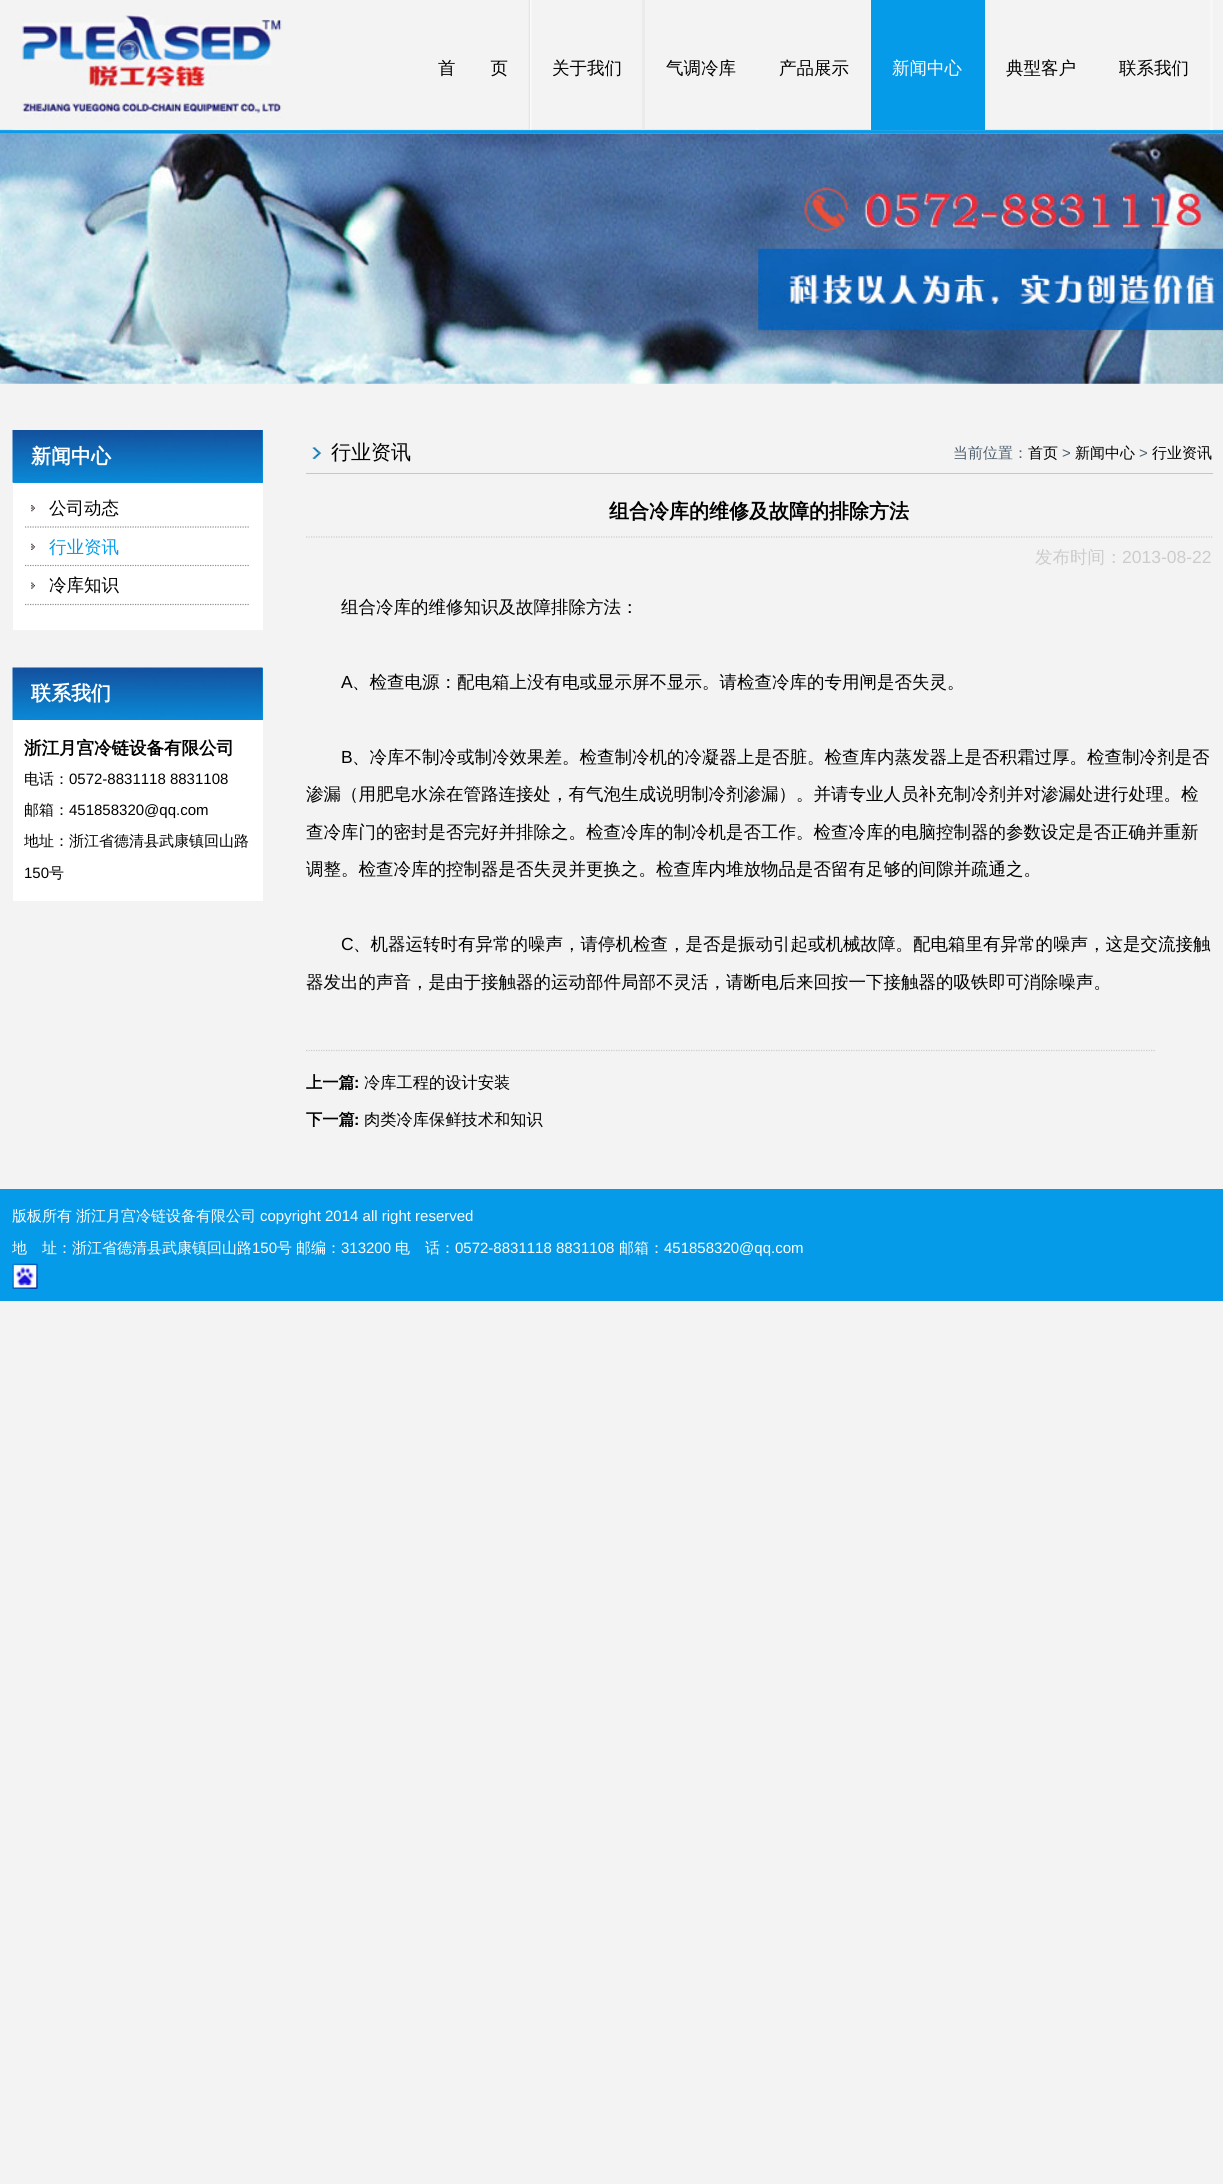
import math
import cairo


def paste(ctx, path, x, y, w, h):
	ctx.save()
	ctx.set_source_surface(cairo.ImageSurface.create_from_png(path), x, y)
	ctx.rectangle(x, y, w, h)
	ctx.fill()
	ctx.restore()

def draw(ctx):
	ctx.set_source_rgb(0.953, 0.953, 0.953)
	ctx.paint()
	paste(ctx, 'media/1.png', 0, 129, 1223, 5)
	paste(ctx, 'media/2.png', 12, 15, 310, 115)
	paste(ctx, 'media/3.png', 528, 0, 4, 130)
	ctx.select_font_face('WenQuanYi Zen Hei Medium')
	ctx.set_font_size(17.5)
	ctx.set_source_rgb(0, 0, 0)
	ctx.move_to(438, 74)
	ctx.show_text('首　　页')
	ctx.set_source_rgb(0.918, 0.918, 0.918)
	ctx.rectangle(642, 0, 3, 130)
	ctx.fill()
	ctx.set_source_rgb(0, 0, 0)
	ctx.move_to(552, 74)
	ctx.show_text('关于我们')
	ctx.set_source_rgb(0.945, 0.945, 0.945)
	ctx.rectangle(756, 129, 3, 1)
	ctx.fill()
	ctx.set_source_rgb(0, 0, 0)
	ctx.move_to(666, 74)
	ctx.show_text('气调冷库')
	ctx.set_source_rgb(0.965, 0.965, 0.965)
	ctx.rectangle(870, 0, 1, 130)
	ctx.fill()
	ctx.set_source_rgb(0, 0, 0)
	ctx.move_to(779, 74)
	ctx.show_text('产品展示')
	ctx.set_source_rgb(0.027, 0.608, 0.91)
	ctx.rectangle(871, 0, 114, 130)
	ctx.fill()
	ctx.set_source_rgb(1, 1, 1)
	ctx.move_to(892, 74)
	ctx.show_text('新闻中心')
	ctx.set_source_rgb(0.945, 0.945, 0.945)
	ctx.rectangle(1096, 129, 3, 1)
	ctx.fill()
	ctx.set_source_rgb(0, 0, 0)
	ctx.move_to(1006, 74)
	ctx.show_text('典型客户')
	ctx.set_source_rgb(0.965, 0.965, 0.965)
	ctx.rectangle(1210, 0, 3, 130)
	ctx.fill()
	ctx.set_source_rgb(0, 0, 0)
	ctx.move_to(1119, 74)
	ctx.show_text('联系我们')
	paste(ctx, 'media/4.png', 0, 133, 1223, 251)
	ctx.set_source_rgb(0.027, 0.608, 0.91)
	ctx.rectangle(13, 430, 250, 53)
	ctx.fill()
	paste(ctx, 'media/5.png', 12, 430, 251, 53)
	ctx.select_font_face('WenQuanYi Zen Hei', cairo.FONT_SLANT_NORMAL, cairo.FONT_WEIGHT_BOLD)
	ctx.set_font_size(20)
	ctx.set_source_rgb(1, 1, 1)
	ctx.move_to(31, 463)
	ctx.show_text('新闻中心')
	ctx.rectangle(13, 483, 250, 147)
	ctx.fill()
	paste(ctx, 'media/6.png', 31, 505, 4, 7)
	ctx.new_path()
	ctx.move_to(25, 527)
	ctx.line_to(250, 527)
	ctx.set_source_rgb(0.569, 0.569, 0.569)
	ctx.set_line_width(1.2)
	ctx.set_dash([1.25, 1.25])
	ctx.stroke()
	ctx.select_font_face('WenQuanYi Zen Hei Medium')
	ctx.set_font_size(17.5)
	ctx.set_source_rgb(0, 0, 0)
	ctx.move_to(49, 514)
	ctx.show_text('公司动态')
	paste(ctx, 'media/7.png', 31, 543, 4, 7)
	ctx.new_path()
	ctx.move_to(25, 565.5)
	ctx.line_to(250, 565.5)
	ctx.set_source_rgb(0.569, 0.569, 0.569)
	ctx.stroke()
	ctx.set_source_rgb(0.027, 0.608, 0.91)
	ctx.move_to(49, 553)
	ctx.show_text('行业资讯')
	paste(ctx, 'media/8.png', 31, 582, 4, 7)
	ctx.new_path()
	ctx.move_to(25, 604.5)
	ctx.line_to(250, 604.5)
	ctx.set_source_rgb(0.569, 0.569, 0.569)
	ctx.stroke()
	ctx.set_source_rgb(0, 0, 0)
	ctx.move_to(49, 591)
	ctx.show_text('冷库知识')
	ctx.set_source_rgb(0.027, 0.608, 0.91)
	ctx.rectangle(262, 668, 1, 52)
	ctx.fill()
	paste(ctx, 'media/9.png', 12, 667, 251, 53)
	ctx.select_font_face('WenQuanYi Zen Hei', cairo.FONT_SLANT_NORMAL, cairo.FONT_WEIGHT_BOLD)
	ctx.set_font_size(20)
	ctx.set_source_rgb(1, 1, 1)
	ctx.move_to(31, 700)
	ctx.show_text('联系我们')
	ctx.rectangle(13, 720, 250, 181)
	ctx.fill()
	ctx.set_font_size(17.5)
	ctx.set_source_rgb(0, 0, 0)
	ctx.move_to(24, 754)
	ctx.show_text('浙江月宫冷链设备有限公司')
	ctx.select_font_face('WenQuanYi Zen Hei Medium')
	ctx.set_font_size(15)
	ctx.move_to(24, 784)
	ctx.show_text('电话：')
	ctx.select_font_face('Liberation Sans')
	ctx.move_to(69, 784)
	ctx.show_text('0572-8831118 8831108')
	ctx.select_font_face('WenQuanYi Zen Hei Medium')
	ctx.move_to(24, 815)
	ctx.show_text('邮箱：')
	ctx.select_font_face('Liberation Sans')
	ctx.move_to(69, 815)
	ctx.show_text('451858320@qq.com')
	ctx.select_font_face('WenQuanYi Zen Hei Medium')
	ctx.move_to(24, 846)
	ctx.show_text('地址：浙江省德清县武康镇回山路')
	ctx.select_font_face('Liberation Sans')
	ctx.move_to(24, 878)
	ctx.show_text('150')
	ctx.select_font_face('WenQuanYi Zen Hei Medium')
	ctx.move_to(49, 878)
	ctx.show_text('号')
	paste(ctx, 'media/10.png', 312, 447, 10, 12)
	ctx.set_source_rgb(0.776, 0.776, 0.776)
	ctx.rectangle(306, 473, 907, 1)
	ctx.fill()
	ctx.set_font_size(20)
	ctx.set_source_rgb(0, 0, 0)
	ctx.move_to(331, 459)
	ctx.show_text('行业资讯')
	ctx.set_font_size(15)
	ctx.set_source_rgb(0.302, 0.365, 0.424)
	ctx.move_to(953, 458)
	ctx.show_text('当前位置：')
	ctx.set_source_rgb(0, 0, 0)
	ctx.move_to(1028, 458)
	ctx.show_text('首页')
	ctx.select_font_face('Liberation Sans')
	ctx.set_source_rgb(0.302, 0.365, 0.424)
	ctx.move_to(1062, 458)
	ctx.show_text('>')
	ctx.select_font_face('WenQuanYi Zen Hei Medium')
	ctx.set_source_rgb(0, 0, 0)
	ctx.move_to(1075, 458)
	ctx.show_text('新闻中心')
	ctx.select_font_face('Liberation Sans')
	ctx.set_source_rgb(0.302, 0.365, 0.424)
	ctx.move_to(1139, 458)
	ctx.show_text('>')
	ctx.select_font_face('WenQuanYi Zen Hei Medium')
	ctx.set_source_rgb(0, 0, 0)
	ctx.move_to(1152, 458)
	ctx.show_text('行业资讯')
	ctx.new_path()
	ctx.move_to(306, 537)
	ctx.line_to(1212.5, 537)
	ctx.set_source_rgb(0.8, 0.8, 0.8)
	ctx.stroke()
	ctx.select_font_face('WenQuanYi Zen Hei', cairo.FONT_SLANT_NORMAL, cairo.FONT_WEIGHT_BOLD)
	ctx.set_font_size(20)
	ctx.set_source_rgb(0, 0, 0)
	ctx.move_to(609, 518)
	ctx.show_text('组合冷库的维修及故障的排除方法')
	ctx.select_font_face('WenQuanYi Zen Hei Medium')
	ctx.set_font_size(17.5)
	ctx.set_source_rgb(0.8, 0.8, 0.8)
	ctx.move_to(1035, 563)
	ctx.show_text('发布时间：')
	ctx.select_font_face('Liberation Sans')
	ctx.move_to(1122, 563)
	ctx.show_text('2013-08-22')
	ctx.select_font_face('WenQuanYi Zen Hei Medium')
	ctx.set_source_rgb(0, 0, 0)
	ctx.move_to(341, 613)
	ctx.show_text('组合冷库的维修知识及故障排除方法：')
	ctx.select_font_face('Liberation Sans')
	ctx.move_to(341, 688)
	ctx.show_text('A')
	ctx.select_font_face('WenQuanYi Zen Hei Medium')
	ctx.move_to(352, 688)
	ctx.show_text('、检查电源：配电箱上没有电或显示屏不显示。请检查冷库的专用闸是否失灵。')
	ctx.select_font_face('Liberation Sans')
	ctx.move_to(341, 763)
	ctx.show_text('B')
	ctx.select_font_face('WenQuanYi Zen Hei Medium')
	for x, y, s in [
		(352, 763, '、冷库不制冷或制冷效果差。检查制冷机的冷凝器上是否脏。检查库内蒸发器上是否积霜过厚。检查制冷剂是否'),
		(306, 800, '渗漏（用肥皂水涂在管路连接处，有气泡生成说明制冷剂渗漏）。并请专业人员补充制冷剂并对渗漏处进行处理。检'),
		(306, 838, '查冷库门的密封是否完好并排除之。检查冷库的制冷机是否工作。检查冷库的电脑控制器的参数设定是否正确并重新'),
		(306, 875, '调整。检查冷库的控制器是否失灵并更换之。检查库内堆放物品是否留有足够的间隙并疏通之。'),
	]:
		ctx.move_to(x, y)
		ctx.show_text(s)
	ctx.select_font_face('Liberation Sans')
	ctx.move_to(341, 950)
	ctx.show_text('C')
	ctx.select_font_face('WenQuanYi Zen Hei Medium')
	ctx.move_to(353, 950)
	ctx.show_text('、机器运转时有异常的噪声，请停机检查，是否是振动引起或机械故障。配电箱里有异常的噪声，这是交流接触')
	ctx.move_to(306, 988)
	ctx.show_text('器发出的声音，是由于接触器的运动部件局部不灵活，请断电后来回按一下接触器的吸铁即可消除噪声。')
	ctx.new_path()
	ctx.move_to(306, 1050.5)
	ctx.line_to(1156, 1050.5)
	ctx.set_source_rgb(0.8, 0.8, 0.8)
	ctx.stroke()
	ctx.select_font_face('WenQuanYi Zen Hei', cairo.FONT_SLANT_NORMAL, cairo.FONT_WEIGHT_BOLD)
	ctx.set_font_size(16.25)
	ctx.set_source_rgb(0, 0, 0)
	ctx.move_to(306, 1088)
	ctx.show_text('上一篇')
	ctx.select_font_face('Liberation Sans', cairo.FONT_SLANT_NORMAL, cairo.FONT_WEIGHT_BOLD)
	ctx.move_to(354, 1088)
	ctx.show_text(':')
	ctx.select_font_face('WenQuanYi Zen Hei Medium')
	ctx.move_to(364, 1088)
	ctx.show_text('冷库工程的设计安装')
	ctx.select_font_face('WenQuanYi Zen Hei', cairo.FONT_SLANT_NORMAL, cairo.FONT_WEIGHT_BOLD)
	ctx.move_to(306, 1125)
	ctx.show_text('下一篇')
	ctx.select_font_face('Liberation Sans', cairo.FONT_SLANT_NORMAL, cairo.FONT_WEIGHT_BOLD)
	ctx.move_to(354, 1125)
	ctx.show_text(':')
	ctx.select_font_face('WenQuanYi Zen Hei Medium')
	ctx.move_to(364, 1125)
	ctx.show_text('肉类冷库保鲜技术和知识')
	ctx.set_source_rgb(0.027, 0.608, 0.91)
	ctx.rectangle(0, 1189, 1223, 112)
	ctx.fill()
	ctx.set_font_size(15)
	ctx.set_source_rgb(1, 1, 1)
	ctx.move_to(12, 1221)
	ctx.show_text('版板所有')
	ctx.move_to(76, 1221)
	ctx.show_text('浙江月宫冷链设备有限公司')
	ctx.select_font_face('Liberation Sans')
	ctx.move_to(260, 1221)
	ctx.show_text('copyright 2014 all right reserved')
	ctx.select_font_face('WenQuanYi Zen Hei Medium')
	ctx.move_to(12, 1253)
	ctx.show_text('地　址：浙江省德清县武康镇回山路')
	ctx.select_font_face('Liberation Sans')
	ctx.move_to(252, 1253)
	ctx.show_text('150')
	ctx.select_font_face('WenQuanYi Zen Hei Medium')
	ctx.move_to(277, 1253)
	ctx.show_text('号')
	ctx.move_to(296, 1253)
	ctx.show_text('邮编：')
	ctx.select_font_face('Liberation Sans')
	ctx.move_to(341, 1253)
	ctx.show_text('313200')
	ctx.select_font_face('WenQuanYi Zen Hei Medium')
	ctx.move_to(395, 1253)
	ctx.show_text('电　话：')
	ctx.select_font_face('Liberation Sans')
	ctx.move_to(455, 1253)
	ctx.show_text('0572-8831118 8831108')
	ctx.select_font_face('WenQuanYi Zen Hei Medium')
	ctx.move_to(619, 1253)
	ctx.show_text('邮箱：')
	ctx.select_font_face('Liberation Sans')
	ctx.move_to(664, 1253)
	ctx.show_text('451858320@qq.com')
	paste(ctx, 'media/11.png', 12, 1263, 26, 26)


surface = cairo.ImageSurface(cairo.FORMAT_RGB24, 1223, 2184)
ctx = cairo.Context(surface)
options = cairo.FontOptions()
options.set_hint_metrics(cairo.HINT_METRICS_OFF)
options.set_hint_style(cairo.HINT_STYLE_NONE)
ctx.set_font_options(options)
ctx.set_miter_limit(4)
draw(ctx)
surface.write_to_png('image.png')
